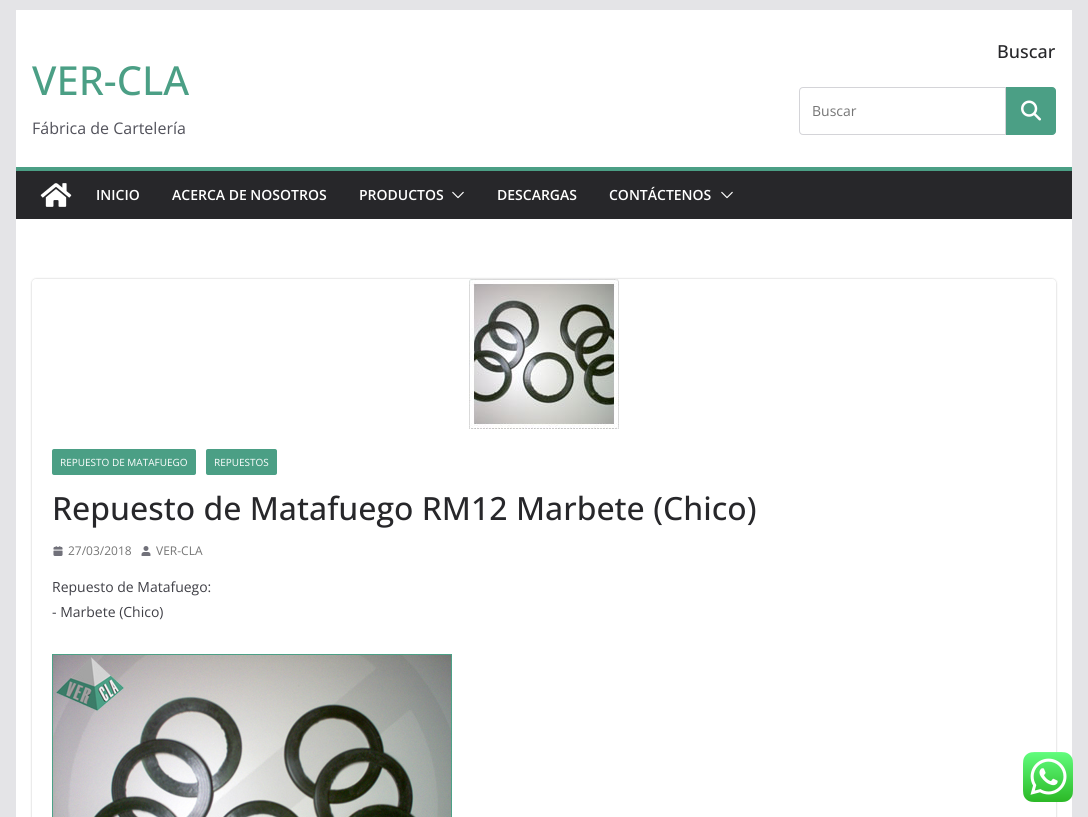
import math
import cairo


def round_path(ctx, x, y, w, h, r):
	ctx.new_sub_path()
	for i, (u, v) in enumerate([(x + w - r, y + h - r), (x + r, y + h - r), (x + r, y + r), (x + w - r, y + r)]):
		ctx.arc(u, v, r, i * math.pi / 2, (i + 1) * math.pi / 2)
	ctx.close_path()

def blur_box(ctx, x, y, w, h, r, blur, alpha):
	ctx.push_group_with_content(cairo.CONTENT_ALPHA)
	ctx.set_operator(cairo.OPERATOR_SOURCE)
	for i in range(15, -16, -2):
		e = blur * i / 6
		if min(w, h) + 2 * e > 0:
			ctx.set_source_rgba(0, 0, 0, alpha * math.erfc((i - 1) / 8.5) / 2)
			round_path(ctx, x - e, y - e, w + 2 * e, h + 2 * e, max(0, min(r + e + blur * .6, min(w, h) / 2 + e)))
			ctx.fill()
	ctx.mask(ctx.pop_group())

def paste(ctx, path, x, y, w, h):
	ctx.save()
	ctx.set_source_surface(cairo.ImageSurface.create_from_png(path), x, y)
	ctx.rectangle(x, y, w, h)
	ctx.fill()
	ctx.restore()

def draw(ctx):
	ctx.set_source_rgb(0.894, 0.894, 0.906)
	ctx.paint()
	ctx.set_source_rgb(1, 1, 1)
	ctx.rectangle(16, 10, 1056, 157)
	ctx.fill()
	ctx.select_font_face('Open Sans Medium')
	ctx.set_font_size(40)
	ctx.set_source_rgb(0.294, 0.624, 0.522)
	ctx.move_to(32, 95)
	ctx.show_text('VER-CLA')
	ctx.select_font_face('Open Sans')
	ctx.set_font_size(16)
	ctx.set_source_rgb(0.322, 0.322, 0.357)
	ctx.move_to(32, 134)
	ctx.show_text('Fábrica de Cartelería')
	ctx.select_font_face('Open Sans Medium')
	ctx.set_font_size(18)
	ctx.set_source_rgb(0.153, 0.153, 0.165)
	ctx.move_to(997, 58)
	ctx.show_text('Buscar')
	ctx.new_path()
	ctx.move_to(803, 87.5)
	ctx.line_to(1005.5, 87.5)
	ctx.line_to(1005.5, 134.5)
	ctx.line_to(803, 134.5)
	ctx.curve_to(801, 134.5, 799.5, 133, 799.5, 131)
	ctx.line_to(799.5, 91)
	ctx.curve_to(799.5, 89, 801, 87.5, 803, 87.5)
	ctx.close_path()
	ctx.set_source_rgb(0.831, 0.831, 0.847)
	ctx.set_line_width(1)
	ctx.stroke()
	ctx.select_font_face('Open Sans')
	ctx.set_font_size(14)
	ctx.set_source_rgb(0.459, 0.459, 0.459)
	ctx.move_to(812, 116)
	ctx.show_text('Buscar')
	ctx.set_source_rgb(0.294, 0.624, 0.522)
	ctx.new_path()
	ctx.move_to(1006.5, 87.5)
	ctx.line_to(1052, 87.5)
	ctx.curve_to(1054, 87.5, 1055.5, 89, 1055.5, 91)
	ctx.line_to(1055.5, 131)
	ctx.curve_to(1055.5, 133, 1054, 134.5, 1052, 134.5)
	ctx.line_to(1006.5, 134.5)
	ctx.close_path()
	ctx.fill_preserve()
	ctx.stroke()
	paste(ctx, 'media/1.png', 1021, 100, 20, 21)
	ctx.set_source_rgb(0.153, 0.153, 0.165)
	ctx.rectangle(16, 171, 1056, 48)
	ctx.fill()
	ctx.set_source_rgb(0.294, 0.624, 0.522)
	ctx.rectangle(16, 167, 1056, 4)
	ctx.fill()
	paste(ctx, 'media/2.png', 40, 183, 32, 24)
	ctx.select_font_face('Open Sans SemiBold')
	ctx.set_source_rgb(1, 1, 1)
	for x, y, s in [
		(96, 200, 'INICIO'),
		(172, 200, 'ACERCA DE NOSOTROS'),
		(359, 200, 'PRODUCTOS'),
	]:
		ctx.move_to(x, y)
		ctx.show_text(s)
	paste(ctx, 'media/3.png', 452, 191, 12, 8)
	ctx.move_to(497, 200)
	ctx.show_text('DESCARGAS')
	ctx.move_to(609, 200)
	ctx.show_text('CONTÁCTENOS')
	paste(ctx, 'media/3.png', 721, 191, 12, 8)
	ctx.rectangle(16, 219, 1056, 598)
	ctx.fill()
	ctx.save()
	ctx.set_fill_rule(cairo.FILL_RULE_EVEN_ODD)
	ctx.new_path()
	ctx.move_to(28, 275)
	ctx.line_to(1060, 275)
	ctx.line_to(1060, 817)
	ctx.line_to(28, 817)
	ctx.close_path()
	ctx.move_to(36, 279)
	ctx.line_to(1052, 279)
	ctx.curve_to(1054, 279, 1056, 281, 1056, 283)
	ctx.line_to(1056, 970)
	ctx.curve_to(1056, 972, 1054, 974, 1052, 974)
	ctx.line_to(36, 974)
	ctx.curve_to(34, 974, 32, 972, 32, 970)
	ctx.line_to(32, 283)
	ctx.curve_to(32, 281, 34, 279, 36, 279)
	ctx.close_path()
	ctx.clip()
	ctx.set_source_rgb(0, 0, 0)
	blur_box(ctx, 32, 279, 1024, 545, 4, 1, 0.24)
	ctx.restore()
	paste(ctx, 'media/4.png', 469, 279, 150, 150)
	ctx.set_source_rgb(0.294, 0.624, 0.522)
	round_path(ctx, 52, 449, 144, 26, 2)
	ctx.fill()
	ctx.select_font_face('Open Sans')
	ctx.set_font_size(10)
	ctx.set_source_rgb(1, 1, 1)
	ctx.move_to(60, 466)
	ctx.show_text('REPUESTO DE MATAFUEGO')
	ctx.set_source_rgb(0.294, 0.624, 0.522)
	round_path(ctx, 206, 449, 71, 26, 2)
	ctx.fill()
	ctx.set_source_rgb(1, 1, 1)
	ctx.move_to(214, 466)
	ctx.show_text('REPUESTOS')
	ctx.select_font_face('Open Sans Medium')
	ctx.set_font_size(32)
	ctx.set_source_rgb(0.153, 0.153, 0.165)
	ctx.move_to(52, 520)
	ctx.show_text('Repuesto de Matafuego RM12 Marbete (Chico)')
	paste(ctx, 'media/5.png', 53, 546, 10, 10)
	ctx.select_font_face('Open Sans')
	ctx.set_font_size(12)
	ctx.set_source_rgb(0.459, 0.459, 0.459)
	ctx.move_to(68, 555)
	ctx.show_text('27/03/2018')
	paste(ctx, 'media/6.png', 141, 546, 10, 10)
	ctx.move_to(156, 555)
	ctx.show_text('VER-CLA')
	ctx.set_font_size(14)
	ctx.set_source_rgb(0.247, 0.247, 0.275)
	ctx.move_to(52, 592)
	ctx.show_text('Repuesto de Matafuego:')
	ctx.move_to(52, 617)
	ctx.show_text('- Marbete (Chico)')
	paste(ctx, 'media/7.png', 52, 654, 400, 163)
	paste(ctx, 'media/8.png', 1023, 752, 50, 50)


surface = cairo.ImageSurface(cairo.FORMAT_RGB24, 1088, 817)
ctx = cairo.Context(surface)
options = cairo.FontOptions()
options.set_hint_metrics(cairo.HINT_METRICS_OFF)
options.set_hint_style(cairo.HINT_STYLE_NONE)
ctx.set_font_options(options)
ctx.set_miter_limit(4)
draw(ctx)
surface.write_to_png('image.png')
